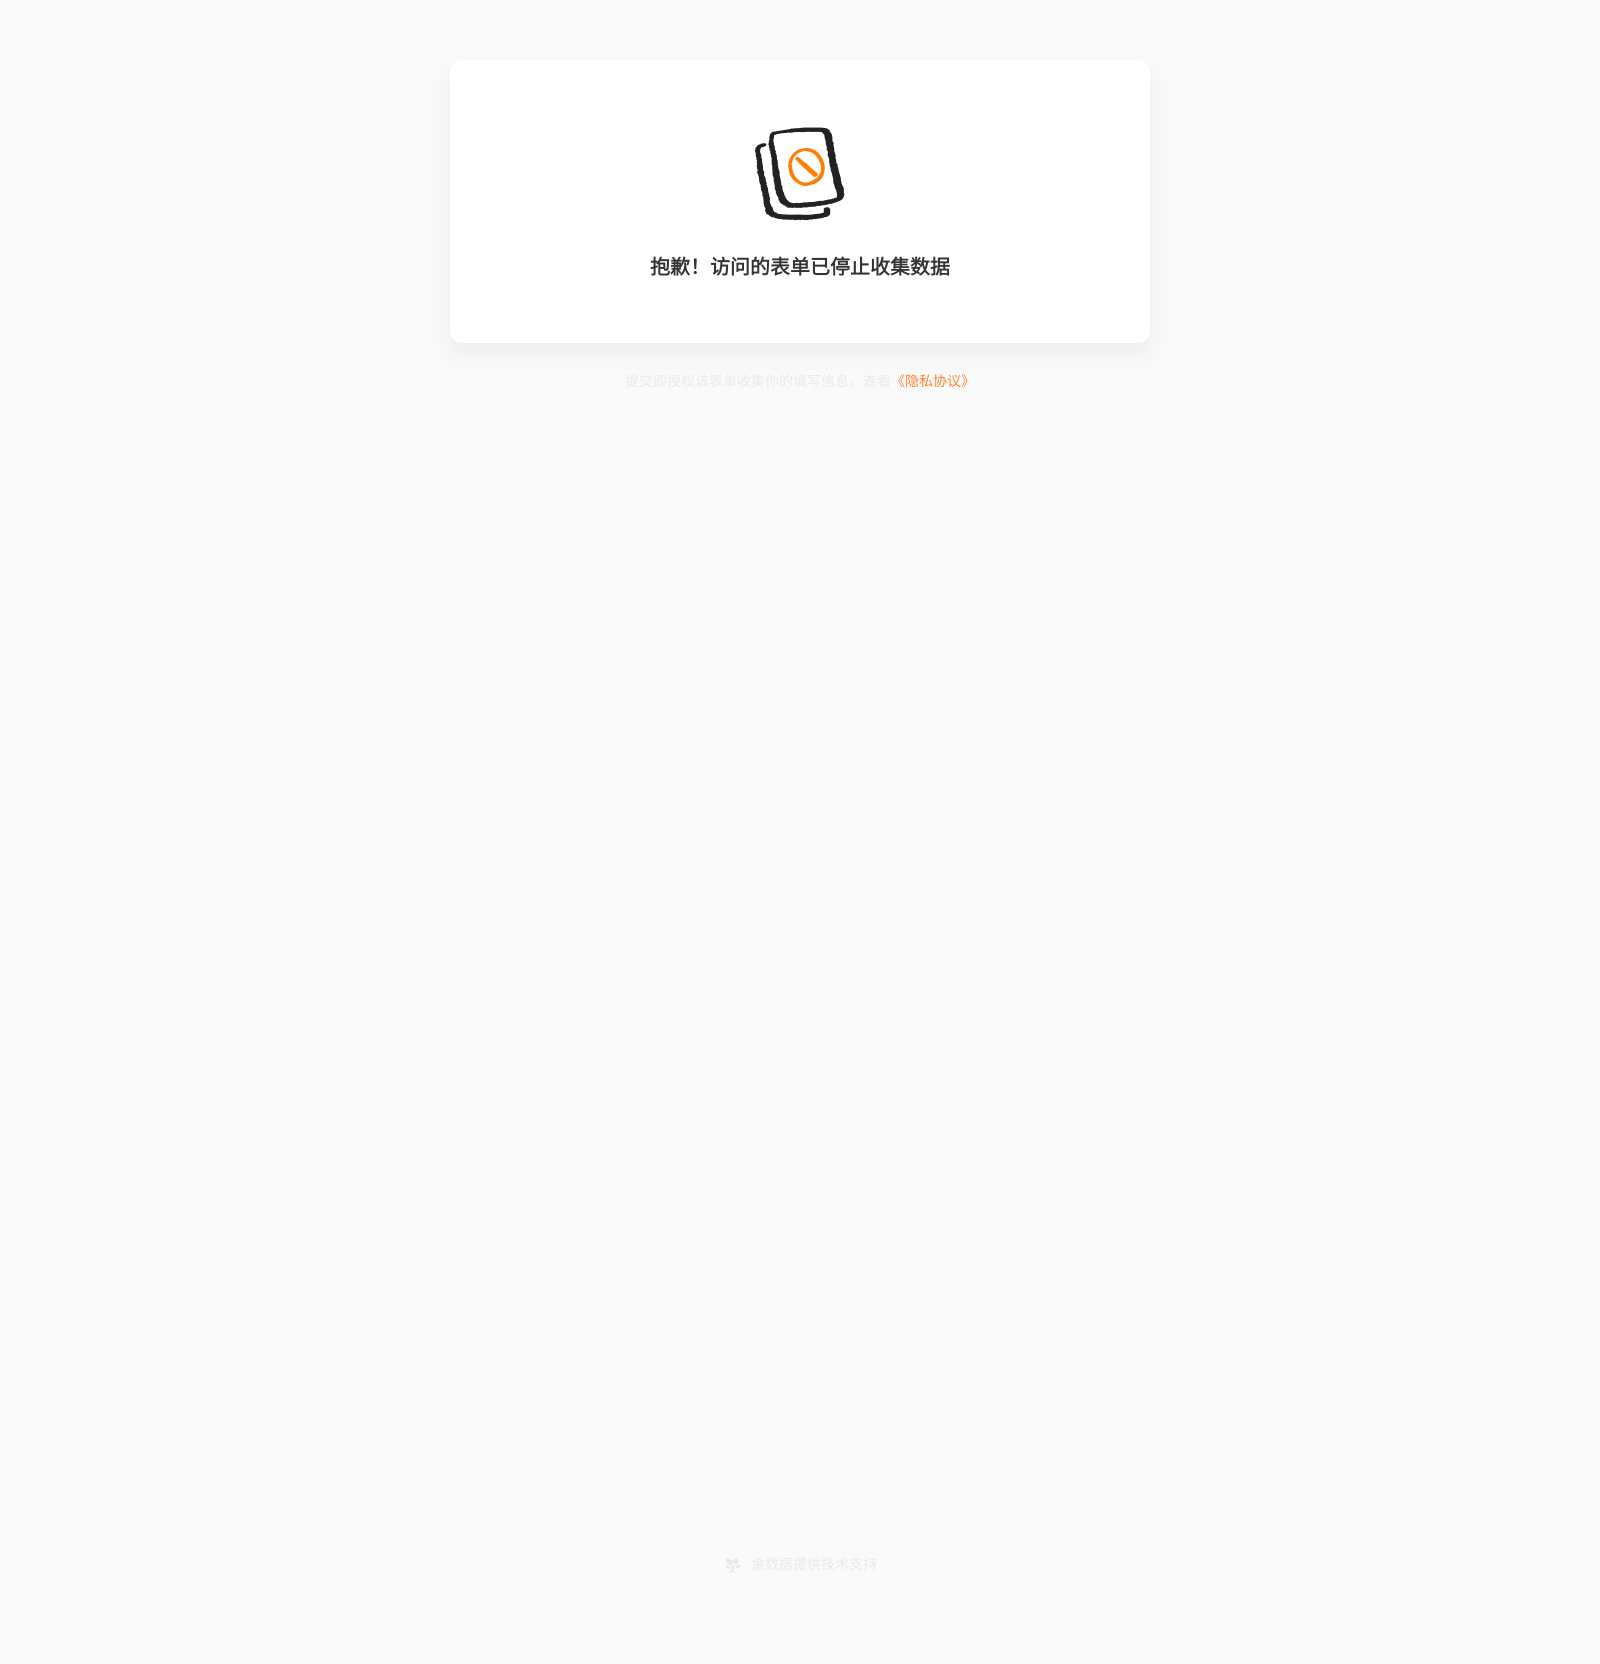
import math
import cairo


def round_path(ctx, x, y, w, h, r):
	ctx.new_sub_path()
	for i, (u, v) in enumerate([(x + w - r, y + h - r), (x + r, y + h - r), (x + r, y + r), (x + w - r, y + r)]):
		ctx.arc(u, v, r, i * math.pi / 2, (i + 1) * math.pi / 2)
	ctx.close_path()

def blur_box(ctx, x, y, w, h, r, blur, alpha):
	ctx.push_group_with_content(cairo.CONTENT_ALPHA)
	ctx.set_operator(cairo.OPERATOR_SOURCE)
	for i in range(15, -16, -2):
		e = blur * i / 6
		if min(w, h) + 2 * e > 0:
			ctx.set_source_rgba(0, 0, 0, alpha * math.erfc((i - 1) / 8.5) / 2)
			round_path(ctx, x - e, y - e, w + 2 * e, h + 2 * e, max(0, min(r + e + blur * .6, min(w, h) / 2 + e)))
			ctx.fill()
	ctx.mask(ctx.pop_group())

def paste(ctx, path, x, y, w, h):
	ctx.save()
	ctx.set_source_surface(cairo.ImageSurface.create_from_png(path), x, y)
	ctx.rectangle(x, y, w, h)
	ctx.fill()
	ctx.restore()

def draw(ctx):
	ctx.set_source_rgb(0.98, 0.98, 0.98)
	ctx.paint()
	ctx.set_source_rgb(0, 0, 0)
	blur_box(ctx, 450, 72, 700, 283, 12, 12, 0.05)
	ctx.set_source_rgb(1, 1, 1)
	round_path(ctx, 450, 60, 700, 283, 12)
	ctx.fill()
	paste(ctx, 'media/1.png', 755, 127, 90, 94)
	ctx.select_font_face('Noto Sans CJK SC', cairo.FONT_SLANT_NORMAL, cairo.FONT_WEIGHT_BOLD)
	ctx.set_font_size(20)
	ctx.set_source_rgb(0.2, 0.2, 0.2)
	ctx.move_to(650, 274)
	ctx.show_text('抱歉！访问的表单已停止收集数据')
	ctx.select_font_face('Noto Sans CJK SC')
	ctx.set_font_size(14)
	ctx.set_source_rgb(0.914, 0.914, 0.914)
	ctx.move_to(625, 386)
	ctx.show_text('提交即授权该表单收集你的填写信息，查看')
	ctx.set_source_rgb(1, 0.522, 0.2)
	ctx.move_to(891, 386)
	ctx.show_text('《隐私协议》')
	paste(ctx, 'media/2.png', 725, 1558, 16, 15)
	ctx.set_source_rgb(0.914, 0.914, 0.914)
	ctx.move_to(751, 1569)
	ctx.show_text('金数据提供技术支持')


surface = cairo.ImageSurface(cairo.FORMAT_RGB24, 1600, 1664)
ctx = cairo.Context(surface)
options = cairo.FontOptions()
options.set_hint_metrics(cairo.HINT_METRICS_OFF)
options.set_hint_style(cairo.HINT_STYLE_NONE)
ctx.set_font_options(options)
ctx.set_miter_limit(4)
draw(ctx)
surface.write_to_png('image.png')
